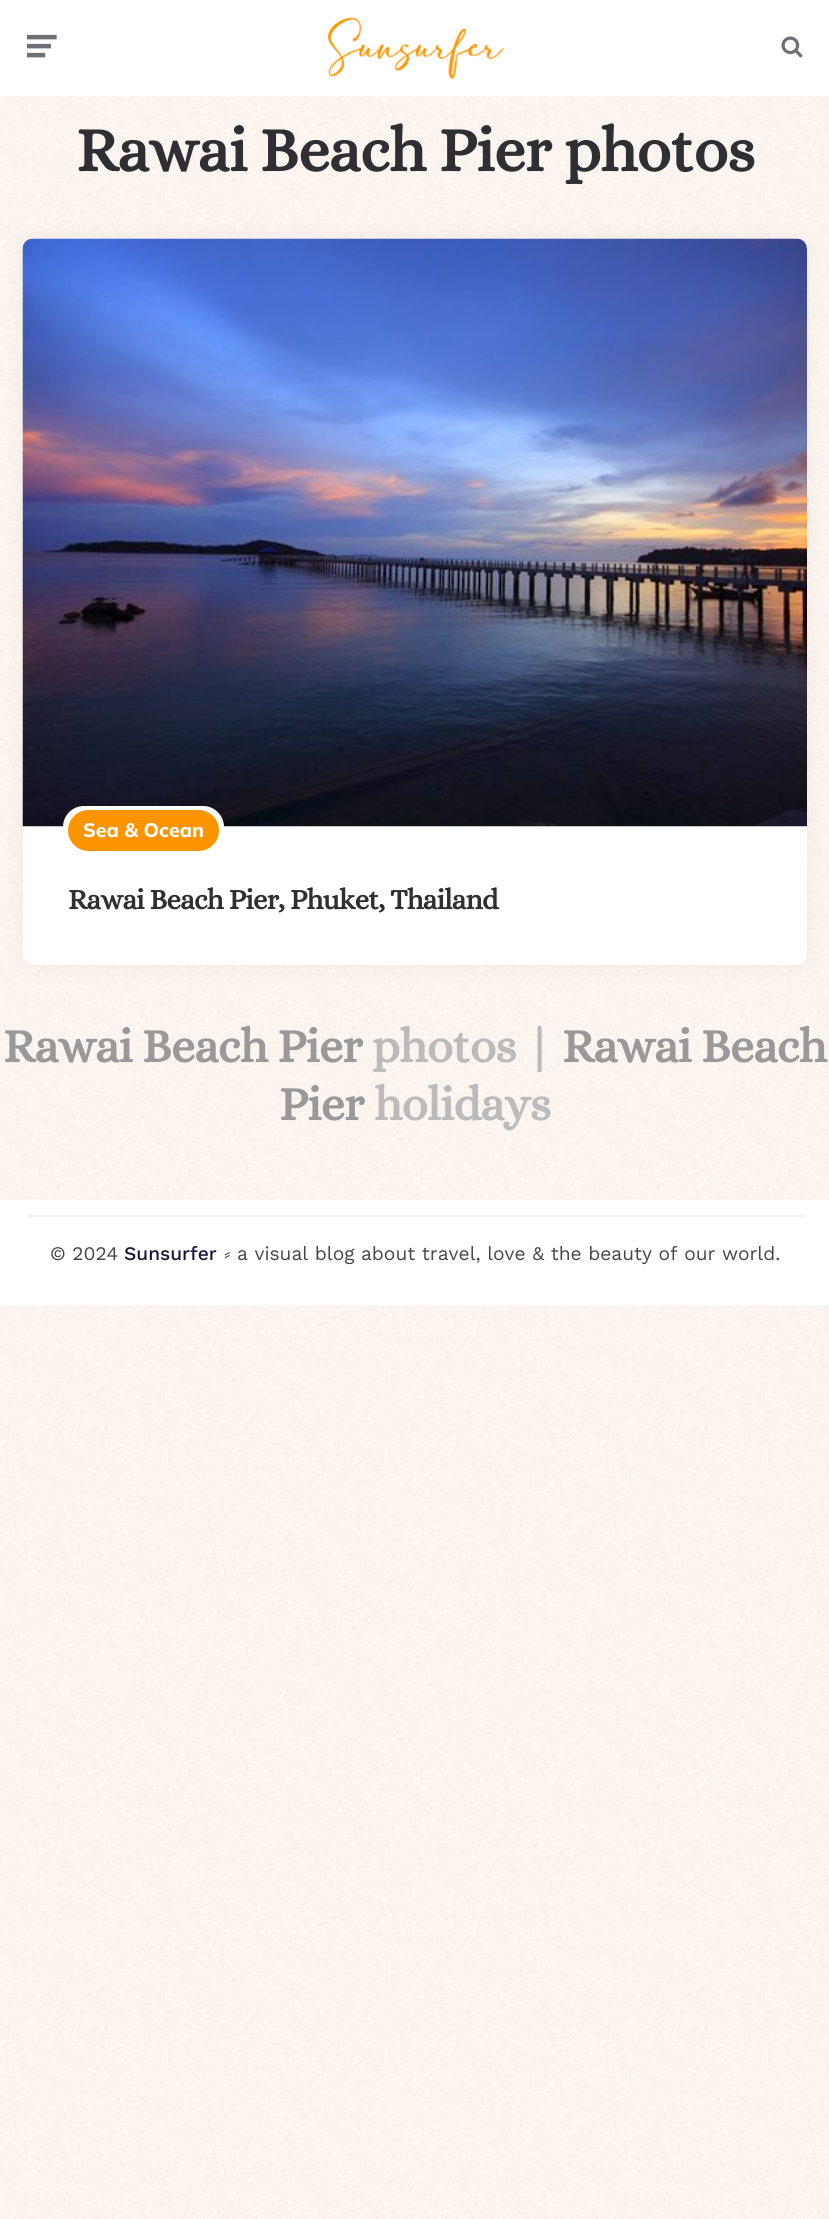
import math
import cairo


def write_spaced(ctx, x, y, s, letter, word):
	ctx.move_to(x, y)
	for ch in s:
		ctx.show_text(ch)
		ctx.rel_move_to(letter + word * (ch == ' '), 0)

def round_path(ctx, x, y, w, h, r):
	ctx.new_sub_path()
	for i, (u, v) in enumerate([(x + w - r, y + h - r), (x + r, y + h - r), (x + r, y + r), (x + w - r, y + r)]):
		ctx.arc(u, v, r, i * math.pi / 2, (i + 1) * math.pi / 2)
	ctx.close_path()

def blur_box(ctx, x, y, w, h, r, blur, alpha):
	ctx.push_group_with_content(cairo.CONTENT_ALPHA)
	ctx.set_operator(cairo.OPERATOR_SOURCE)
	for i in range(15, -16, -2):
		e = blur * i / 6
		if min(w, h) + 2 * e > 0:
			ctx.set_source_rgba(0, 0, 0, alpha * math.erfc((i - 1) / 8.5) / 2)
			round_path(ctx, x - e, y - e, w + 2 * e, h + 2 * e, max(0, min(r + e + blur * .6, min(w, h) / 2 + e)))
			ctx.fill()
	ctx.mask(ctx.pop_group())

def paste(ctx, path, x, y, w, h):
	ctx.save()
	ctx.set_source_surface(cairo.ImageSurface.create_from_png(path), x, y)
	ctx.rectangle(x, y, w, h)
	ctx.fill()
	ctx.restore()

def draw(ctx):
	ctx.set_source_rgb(1, 0.969, 0.953)
	ctx.paint()
	paste(ctx, 'media/1.png', 0, 96, 829, 2123)
	ctx.set_source_rgb(1, 1, 1)
	ctx.rectangle(0, 0, 829, 96)
	ctx.fill()
	paste(ctx, 'media/2.png', 27, 34, 30, 24)
	paste(ctx, 'media/3.png', 327, 17, 178, 62)
	paste(ctx, 'media/4.png', 781, 36, 22, 22)
	ctx.select_font_face('Alice', cairo.FONT_SLANT_NORMAL, cairo.FONT_WEIGHT_BOLD)
	ctx.set_font_size(63)
	ctx.set_source_rgb(0.18, 0.184, 0.2)
	write_spaced(ctx, 76, 171, 'Rawai Beach Pier photos', -0.75, 0)
	ctx.set_source_rgb(0, 0, 0)
	blur_box(ctx, 23, 239, 784, 726, 11, 11, 0.05)
	ctx.set_source_rgb(1, 1, 1)
	round_path(ctx, 23, 239, 784, 726, 11)
	ctx.fill()
	paste(ctx, 'media/5.png', 22, 238, 785, 589)
	round_path(ctx, 65.5, 808.5, 156, 44, 18.5)
	ctx.fill_preserve()
	ctx.set_line_width(5)
	ctx.stroke()
	ctx.set_source_rgb(0.996, 0.584, 0)
	round_path(ctx, 68, 810, 151, 41, 20.5)
	ctx.fill()
	ctx.select_font_face('Mulish ExtraBold')
	ctx.set_font_size(19.5)
	ctx.set_source_rgb(1, 1, 1)
	ctx.move_to(83, 837)
	ctx.show_text('Sea & Ocean')
	ctx.select_font_face('Alice', cairo.FONT_SLANT_NORMAL, cairo.FONT_WEIGHT_BOLD)
	ctx.set_font_size(28.75)
	ctx.set_source_rgb(0.18, 0.184, 0.2)
	write_spaced(ctx, 68, 909, 'Rawai Beach Pier, Phuket, Thailand', -0.75, 0)
	ctx.set_font_size(48)
	ctx.set_source_rgb(0.6, 0.6, 0.6)
	write_spaced(ctx, 3, 1062, 'Rawai Beach Pier', -0.75, 0)
	ctx.set_source_rgb(0.733, 0.733, 0.733)
	write_spaced(ctx, 372, 1062, 'photos |', -0.75, 0)
	ctx.set_source_rgb(0.6, 0.6, 0.6)
	write_spaced(ctx, 562, 1062, 'Rawai Beach', -0.75, 0)
	write_spaced(ctx, 279, 1120, 'Pier', -0.75, 0)
	ctx.set_source_rgb(0.733, 0.733, 0.733)
	write_spaced(ctx, 374, 1120, 'holidays', -0.75, 0)
	ctx.set_source_rgb(1, 1, 1)
	ctx.rectangle(0, 1200, 829, 105)
	ctx.fill()
	ctx.set_source_rgb(0.945, 0.945, 0.945)
	ctx.rectangle(27, 1215, 776, 2)
	ctx.fill()
	ctx.select_font_face('Work Sans')
	ctx.set_font_size(19.2)
	ctx.set_source_rgb(0.271, 0.275, 0.294)
	ctx.move_to(50, 1260)
	ctx.show_text('© 2024')
	ctx.select_font_face('Work Sans Medium')
	ctx.set_source_rgb(0.106, 0.082, 0.224)
	ctx.move_to(124, 1260)
	ctx.show_text('Sunsurfer')
	ctx.select_font_face('Liberation Serif')
	ctx.set_source_rgb(0.271, 0.275, 0.294)
	ctx.move_to(224, 1260)
	ctx.show_text('⸗')
	ctx.select_font_face('Work Sans')
	ctx.move_to(237, 1260)
	ctx.show_text('a visual blog about travel, love & the beauty of our world.')


surface = cairo.ImageSurface(cairo.FORMAT_RGB24, 829, 2219)
ctx = cairo.Context(surface)
options = cairo.FontOptions()
options.set_hint_metrics(cairo.HINT_METRICS_OFF)
options.set_hint_style(cairo.HINT_STYLE_NONE)
ctx.set_font_options(options)
ctx.set_miter_limit(4)
draw(ctx)
surface.write_to_png('image.png')
